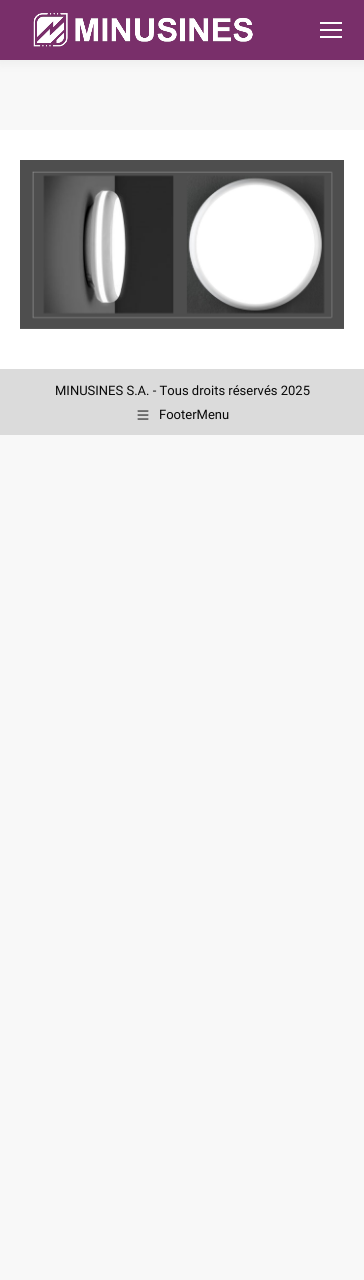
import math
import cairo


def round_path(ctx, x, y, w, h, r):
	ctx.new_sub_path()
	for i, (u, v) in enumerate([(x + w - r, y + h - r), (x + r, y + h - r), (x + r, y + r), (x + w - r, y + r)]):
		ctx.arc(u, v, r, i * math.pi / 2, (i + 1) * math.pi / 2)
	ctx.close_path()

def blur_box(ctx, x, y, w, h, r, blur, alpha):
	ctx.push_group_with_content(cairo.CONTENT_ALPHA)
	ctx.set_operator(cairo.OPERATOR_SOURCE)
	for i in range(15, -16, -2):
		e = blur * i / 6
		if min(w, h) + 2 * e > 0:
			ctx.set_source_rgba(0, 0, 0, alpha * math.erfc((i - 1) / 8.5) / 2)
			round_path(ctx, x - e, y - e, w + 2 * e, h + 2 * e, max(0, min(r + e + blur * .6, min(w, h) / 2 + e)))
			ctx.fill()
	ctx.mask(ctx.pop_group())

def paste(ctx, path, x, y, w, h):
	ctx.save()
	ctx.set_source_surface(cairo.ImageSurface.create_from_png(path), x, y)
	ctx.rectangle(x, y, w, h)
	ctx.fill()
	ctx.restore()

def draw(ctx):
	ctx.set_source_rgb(0.969, 0.969, 0.969)
	ctx.paint()
	ctx.set_source_rgb(1, 1, 1)
	ctx.rectangle(0, 130, 364, 239)
	ctx.fill()
	ctx.set_source_rgb(0, 0, 0)
	blur_box(ctx, -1, -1, 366, 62, 0, 7.5, 0.07)
	ctx.set_source_rgb(0.475, 0.184, 0.416)
	ctx.rectangle(0, 0, 364, 60)
	ctx.fill()
	paste(ctx, 'media/1.png', 33, 13, 220, 34)
	ctx.set_source_rgb(1, 1, 1)
	ctx.rectangle(320, 22, 22, 2)
	ctx.rectangle(320, 29, 22, 2)
	ctx.rectangle(320, 36, 22, 2)
	ctx.fill()
	paste(ctx, 'media/2.png', 20, 160, 324, 169)
	ctx.set_source_rgb(0.859, 0.859, 0.859)
	ctx.rectangle(0, 369, 364, 66)
	ctx.fill()
	ctx.select_font_face('Roboto')
	ctx.set_font_size(13)
	ctx.set_source_rgb(0.039, 0.039, 0.039)
	ctx.move_to(55, 395)
	ctx.show_text('MINUSINES S.A. - Tous droits réservés 2025')
	paste(ctx, 'media/3.png', 137, 410, 12, 10)
	ctx.move_to(159, 419)
	ctx.show_text('FooterMenu')


surface = cairo.ImageSurface(cairo.FORMAT_RGB24, 364, 1280)
ctx = cairo.Context(surface)
options = cairo.FontOptions()
options.set_hint_metrics(cairo.HINT_METRICS_OFF)
options.set_hint_style(cairo.HINT_STYLE_NONE)
ctx.set_font_options(options)
ctx.set_miter_limit(4)
draw(ctx)
surface.write_to_png('image.png')
